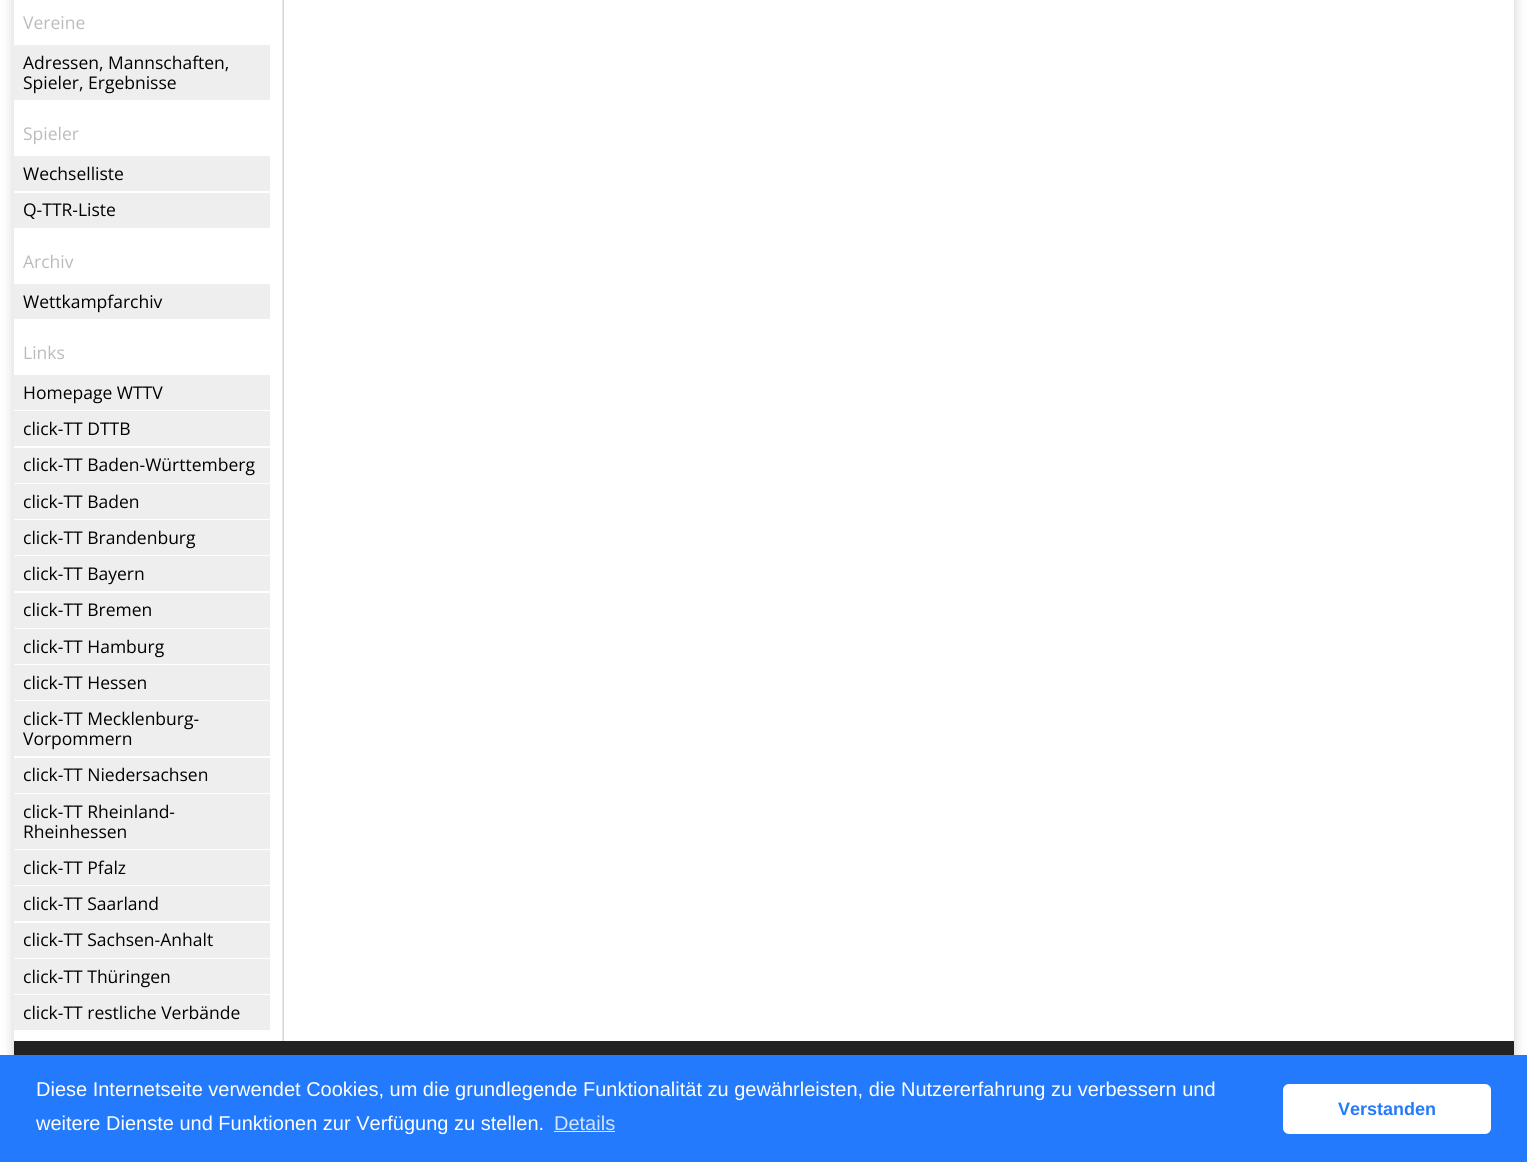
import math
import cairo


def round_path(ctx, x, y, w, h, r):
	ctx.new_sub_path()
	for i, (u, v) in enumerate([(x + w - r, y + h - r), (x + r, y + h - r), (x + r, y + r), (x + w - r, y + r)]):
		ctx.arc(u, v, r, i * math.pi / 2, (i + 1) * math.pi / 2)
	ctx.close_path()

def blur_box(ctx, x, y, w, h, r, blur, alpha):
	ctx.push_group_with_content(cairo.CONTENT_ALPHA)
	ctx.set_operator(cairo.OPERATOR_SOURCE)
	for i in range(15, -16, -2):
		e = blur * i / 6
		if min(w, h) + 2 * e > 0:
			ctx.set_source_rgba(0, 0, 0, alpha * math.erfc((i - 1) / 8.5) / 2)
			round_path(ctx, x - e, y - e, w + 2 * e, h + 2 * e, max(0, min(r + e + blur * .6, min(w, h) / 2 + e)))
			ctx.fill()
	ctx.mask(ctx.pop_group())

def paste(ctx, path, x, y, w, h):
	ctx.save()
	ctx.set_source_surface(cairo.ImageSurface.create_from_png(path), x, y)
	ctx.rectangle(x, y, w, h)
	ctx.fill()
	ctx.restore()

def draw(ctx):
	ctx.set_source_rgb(1, 1, 1)
	ctx.paint()
	ctx.set_source_rgb(0, 0, 0)
	blur_box(ctx, 14, -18, 1500, 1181, 0, 6, 0.2)
	ctx.set_source_rgb(1, 1, 1)
	ctx.rectangle(284, 0, 1230, 1041)
	ctx.fill()
	paste(ctx, 'media/1.png', 13, 0, 271, 1041)
	ctx.select_font_face('Open Sans')
	ctx.set_font_size(17.5)
	ctx.set_source_rgb(0.733, 0.733, 0.733)
	ctx.move_to(23, 29)
	ctx.show_text('Vereine')
	ctx.set_source_rgb(0.933, 0.933, 0.933)
	ctx.rectangle(14, 45, 256, 55)
	ctx.fill()
	ctx.set_source_rgb(0, 0, 0)
	ctx.move_to(23, 69)
	ctx.show_text('Adressen, Mannschaften,')
	ctx.move_to(23, 89)
	ctx.show_text('Spieler, Ergebnisse')
	ctx.set_source_rgb(0.733, 0.733, 0.733)
	ctx.move_to(23, 140)
	ctx.show_text('Spieler')
	ctx.set_source_rgb(0.933, 0.933, 0.933)
	ctx.rectangle(14, 156, 256, 35)
	ctx.fill()
	ctx.set_source_rgb(0, 0, 0)
	ctx.move_to(23, 180)
	ctx.show_text('Wechselliste')
	ctx.set_source_rgb(0.933, 0.933, 0.933)
	ctx.rectangle(14, 193, 256, 35)
	ctx.fill()
	ctx.set_source_rgb(0, 0, 0)
	ctx.move_to(23, 216)
	ctx.show_text('Q-TTR-Liste')
	ctx.set_source_rgb(0.733, 0.733, 0.733)
	ctx.move_to(23, 268)
	ctx.show_text('Archiv')
	ctx.set_source_rgb(0.933, 0.933, 0.933)
	ctx.rectangle(14, 284, 256, 35)
	ctx.fill()
	ctx.set_source_rgb(0, 0, 0)
	ctx.move_to(23, 308)
	ctx.show_text('Wettkampfarchiv')
	ctx.set_source_rgb(0.733, 0.733, 0.733)
	ctx.move_to(23, 359)
	ctx.show_text('Links')
	ctx.set_source_rgb(0.933, 0.933, 0.933)
	ctx.rectangle(14, 375, 256, 35)
	ctx.fill()
	ctx.set_source_rgb(0, 0, 0)
	ctx.move_to(23, 399)
	ctx.show_text('Homepage WTTV')
	ctx.set_source_rgb(0.933, 0.933, 0.933)
	ctx.rectangle(14, 411, 256, 35)
	ctx.fill()
	ctx.set_source_rgb(0, 0, 0)
	ctx.move_to(23, 435)
	ctx.show_text('click-TT DTTB')
	ctx.set_source_rgb(0.933, 0.933, 0.933)
	ctx.rectangle(14, 448, 256, 35)
	ctx.fill()
	ctx.set_source_rgb(0, 0, 0)
	ctx.move_to(23, 471)
	ctx.show_text('click-TT Baden-Württemberg')
	ctx.set_source_rgb(0.933, 0.933, 0.933)
	ctx.rectangle(14, 484, 256, 35)
	ctx.fill()
	ctx.set_source_rgb(0, 0, 0)
	ctx.move_to(23, 508)
	ctx.show_text('click-TT Baden')
	ctx.set_source_rgb(0.933, 0.933, 0.933)
	ctx.rectangle(14, 520, 256, 35)
	ctx.fill()
	ctx.set_source_rgb(0, 0, 0)
	ctx.move_to(23, 544)
	ctx.show_text('click-TT Brandenburg')
	ctx.set_source_rgb(0.933, 0.933, 0.933)
	ctx.rectangle(14, 556, 256, 35)
	ctx.fill()
	ctx.set_source_rgb(0, 0, 0)
	ctx.move_to(23, 580)
	ctx.show_text('click-TT Bayern')
	ctx.set_source_rgb(0.933, 0.933, 0.933)
	ctx.rectangle(14, 593, 256, 35)
	ctx.fill()
	ctx.set_source_rgb(0, 0, 0)
	ctx.move_to(23, 616)
	ctx.show_text('click-TT Bremen')
	ctx.set_source_rgb(0.933, 0.933, 0.933)
	ctx.rectangle(14, 629, 256, 35)
	ctx.fill()
	ctx.set_source_rgb(0, 0, 0)
	ctx.move_to(23, 653)
	ctx.show_text('click-TT Hamburg')
	ctx.set_source_rgb(0.933, 0.933, 0.933)
	ctx.rectangle(14, 665, 256, 35)
	ctx.fill()
	ctx.set_source_rgb(0, 0, 0)
	ctx.move_to(23, 689)
	ctx.show_text('click-TT Hessen')
	ctx.set_source_rgb(0.933, 0.933, 0.933)
	ctx.rectangle(14, 701, 256, 55)
	ctx.fill()
	ctx.set_source_rgb(0, 0, 0)
	ctx.move_to(23, 725)
	ctx.show_text('click-TT Mecklenburg-')
	ctx.move_to(23, 745)
	ctx.show_text('Vorpommern')
	ctx.set_source_rgb(0.933, 0.933, 0.933)
	ctx.rectangle(14, 758, 256, 35)
	ctx.fill()
	ctx.set_source_rgb(0, 0, 0)
	ctx.move_to(23, 781)
	ctx.show_text('click-TT Niedersachsen')
	ctx.set_source_rgb(0.933, 0.933, 0.933)
	ctx.rectangle(14, 794, 256, 55)
	ctx.fill()
	ctx.set_source_rgb(0, 0, 0)
	ctx.move_to(23, 818)
	ctx.show_text('click-TT Rheinland-')
	ctx.move_to(23, 838)
	ctx.show_text('Rheinhessen')
	ctx.set_source_rgb(0.933, 0.933, 0.933)
	ctx.rectangle(14, 850, 256, 35)
	ctx.fill()
	ctx.set_source_rgb(0, 0, 0)
	ctx.move_to(23, 874)
	ctx.show_text('click-TT Pfalz')
	ctx.set_source_rgb(0.933, 0.933, 0.933)
	ctx.rectangle(14, 886, 256, 35)
	ctx.fill()
	ctx.set_source_rgb(0, 0, 0)
	ctx.move_to(23, 910)
	ctx.show_text('click-TT Saarland')
	ctx.set_source_rgb(0.933, 0.933, 0.933)
	ctx.rectangle(14, 923, 256, 35)
	ctx.fill()
	ctx.set_source_rgb(0, 0, 0)
	ctx.move_to(23, 946)
	ctx.show_text('click-TT Sachsen-Anhalt')
	ctx.set_source_rgb(0.933, 0.933, 0.933)
	ctx.rectangle(14, 959, 256, 35)
	ctx.fill()
	ctx.set_source_rgb(0, 0, 0)
	ctx.move_to(23, 983)
	ctx.show_text('click-TT Thüringen')
	ctx.set_source_rgb(0.933, 0.933, 0.933)
	ctx.rectangle(14, 995, 256, 35)
	ctx.fill()
	ctx.set_source_rgb(0, 0, 0)
	ctx.move_to(23, 1019)
	ctx.show_text('click-TT restliche Verbände')
	ctx.set_source_rgb(0.133, 0.133, 0.133)
	ctx.rectangle(14, 1041, 1500, 14)
	ctx.fill()
	ctx.set_source_rgb(0.137, 0.478, 0.988)
	ctx.rectangle(0, 1055, 1527, 107)
	ctx.fill()
	ctx.select_font_face('Liberation Sans')
	ctx.set_font_size(20)
	ctx.set_source_rgb(1, 1, 1)
	ctx.move_to(36, 1096)
	ctx.show_text('Diese Internetseite verwendet Cookies, um die grundlegende Funktionalität zu gewährleisten, die Nutzererfahrung zu verbessern und')
	ctx.move_to(36, 1130)
	ctx.show_text('weitere Dienste und Funktionen zur Verfügung zu stellen.')
	ctx.set_source_rgb(0.827, 0.894, 0.996)
	ctx.move_to(554, 1130)
	ctx.show_text('Details')
	ctx.rectangle(554, 1131, 61, 1)
	ctx.fill()
	ctx.set_source_rgb(1, 1, 1)
	round_path(ctx, 1283, 1084, 208, 50, 6)
	ctx.fill()
	ctx.select_font_face('Liberation Sans', cairo.FONT_SLANT_NORMAL, cairo.FONT_WEIGHT_BOLD)
	ctx.set_font_size(18)
	ctx.set_source_rgb(0.137, 0.478, 0.988)
	ctx.move_to(1338, 1115)
	ctx.show_text('Verstanden')


surface = cairo.ImageSurface(cairo.FORMAT_RGB24, 1527, 1162)
ctx = cairo.Context(surface)
options = cairo.FontOptions()
options.set_hint_metrics(cairo.HINT_METRICS_OFF)
options.set_hint_style(cairo.HINT_STYLE_NONE)
ctx.set_font_options(options)
ctx.set_miter_limit(4)
draw(ctx)
surface.write_to_png('image.png')
